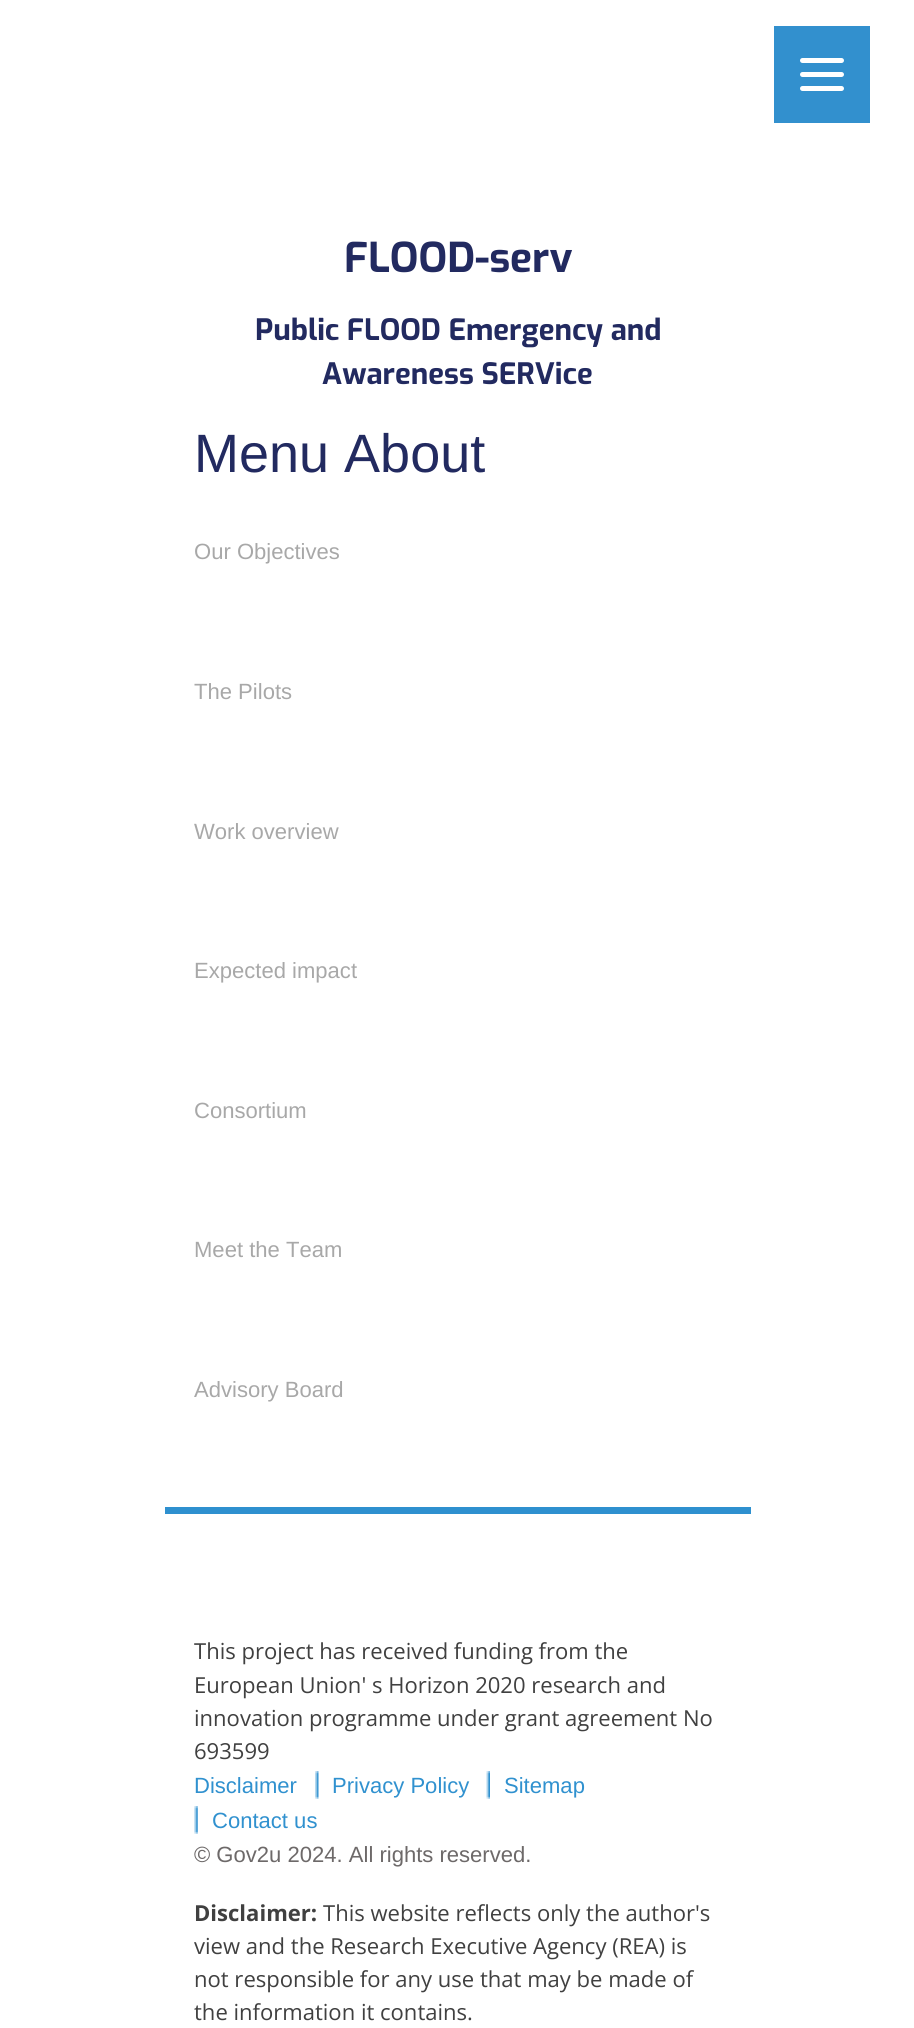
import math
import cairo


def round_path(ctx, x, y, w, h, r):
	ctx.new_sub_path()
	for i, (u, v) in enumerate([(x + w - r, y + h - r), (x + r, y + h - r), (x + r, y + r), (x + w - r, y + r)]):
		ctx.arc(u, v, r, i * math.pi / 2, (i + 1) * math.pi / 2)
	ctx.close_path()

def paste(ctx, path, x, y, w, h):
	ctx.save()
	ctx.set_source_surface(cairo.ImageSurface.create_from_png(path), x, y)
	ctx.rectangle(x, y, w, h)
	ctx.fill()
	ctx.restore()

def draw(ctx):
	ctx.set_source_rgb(1, 1, 1)
	ctx.paint()
	ctx.select_font_face('Exo', cairo.FONT_SLANT_NORMAL, cairo.FONT_WEIGHT_BOLD)
	ctx.set_font_size(41)
	ctx.set_source_rgb(0.133, 0.165, 0.376)
	ctx.move_to(344, 272)
	ctx.show_text('FLOOD-serv')
	ctx.set_font_size(29.4)
	ctx.move_to(255, 340)
	ctx.show_text('Public FLOOD Emergency and')
	ctx.move_to(322, 384)
	ctx.show_text('Awareness SERVice')
	ctx.select_font_face('Liberation Sans')
	ctx.set_font_size(54)
	ctx.move_to(194, 472)
	ctx.show_text('Menu About')
	ctx.set_font_size(22.05)
	ctx.set_source_rgb(0.659, 0.659, 0.659)
	for x, y, s in [
		(194, 559, 'Our Objectives'),
		(194, 699, 'The Pilots'),
		(194, 839, 'Work overview'),
		(194, 978, 'Expected impact'),
		(194, 1118, 'Consortium'),
		(194, 1257, 'Meet the Team'),
		(194, 1397, 'Advisory Board'),
	]:
		ctx.move_to(x, y)
		ctx.show_text(s)
	ctx.set_source_rgb(0.18, 0.565, 0.812)
	ctx.rectangle(165, 1507, 586, 7)
	ctx.fill()
	ctx.set_source_rgb(0.196, 0.565, 0.808)
	ctx.rectangle(774, 26, 96, 97)
	ctx.fill()
	ctx.set_source_rgb(1, 1, 1)
	round_path(ctx, 800, 72, 44, 5, 2.5)
	ctx.fill()
	round_path(ctx, 800, 58, 44, 5, 2.5)
	ctx.fill()
	round_path(ctx, 800, 86, 44, 5, 2.5)
	ctx.fill()
	ctx.select_font_face('Open Sans')
	ctx.set_source_rgb(0.251, 0.251, 0.251)
	for x, y, s in [
		(194, 1659, 'This project has received funding from the'),
		(194, 1693, 'European Union\' s Horizon 2020 research and'),
		(194, 1726, 'innovation programme under grant agreement No'),
		(194, 1759, '693599'),
	]:
		ctx.move_to(x, y)
		ctx.show_text(s)
	ctx.select_font_face('Liberation Sans')
	ctx.set_source_rgb(0.188, 0.569, 0.812)
	ctx.move_to(194, 1793)
	ctx.show_text('Disclaimer')
	paste(ctx, 'media/1.png', 315, 1771, 4, 28)
	ctx.move_to(332, 1793)
	ctx.show_text('Privacy Policy')
	paste(ctx, 'media/2.png', 486, 1771, 4, 28)
	ctx.move_to(504, 1793)
	ctx.show_text('Sitemap')
	paste(ctx, 'media/3.png', 194, 1806, 4, 28)
	ctx.move_to(212, 1828)
	ctx.show_text('Contact us')
	ctx.set_source_rgb(0.427, 0.412, 0.412)
	ctx.move_to(194, 1862)
	ctx.show_text('© Gov2u 2024. All rights reserved.')
	ctx.select_font_face('Open Sans', cairo.FONT_SLANT_NORMAL, cairo.FONT_WEIGHT_BOLD)
	ctx.set_source_rgb(0.251, 0.251, 0.251)
	ctx.move_to(194, 1921)
	ctx.show_text('Disclaimer:')
	ctx.select_font_face('Open Sans')
	for x, y, s in [
		(323, 1921, 'This website reflects only the author\'s'),
		(194, 1954, 'view and the Research Executive Agency (REA) is'),
		(194, 1987, 'not responsible for any use that may be made of'),
		(194, 2020, 'the information it contains.'),
	]:
		ctx.move_to(x, y)
		ctx.show_text(s)


surface = cairo.ImageSurface(cairo.FORMAT_RGB24, 914, 2028)
ctx = cairo.Context(surface)
options = cairo.FontOptions()
options.set_hint_metrics(cairo.HINT_METRICS_OFF)
options.set_hint_style(cairo.HINT_STYLE_NONE)
ctx.set_font_options(options)
ctx.set_miter_limit(4)
draw(ctx)
surface.write_to_png('image.png')
